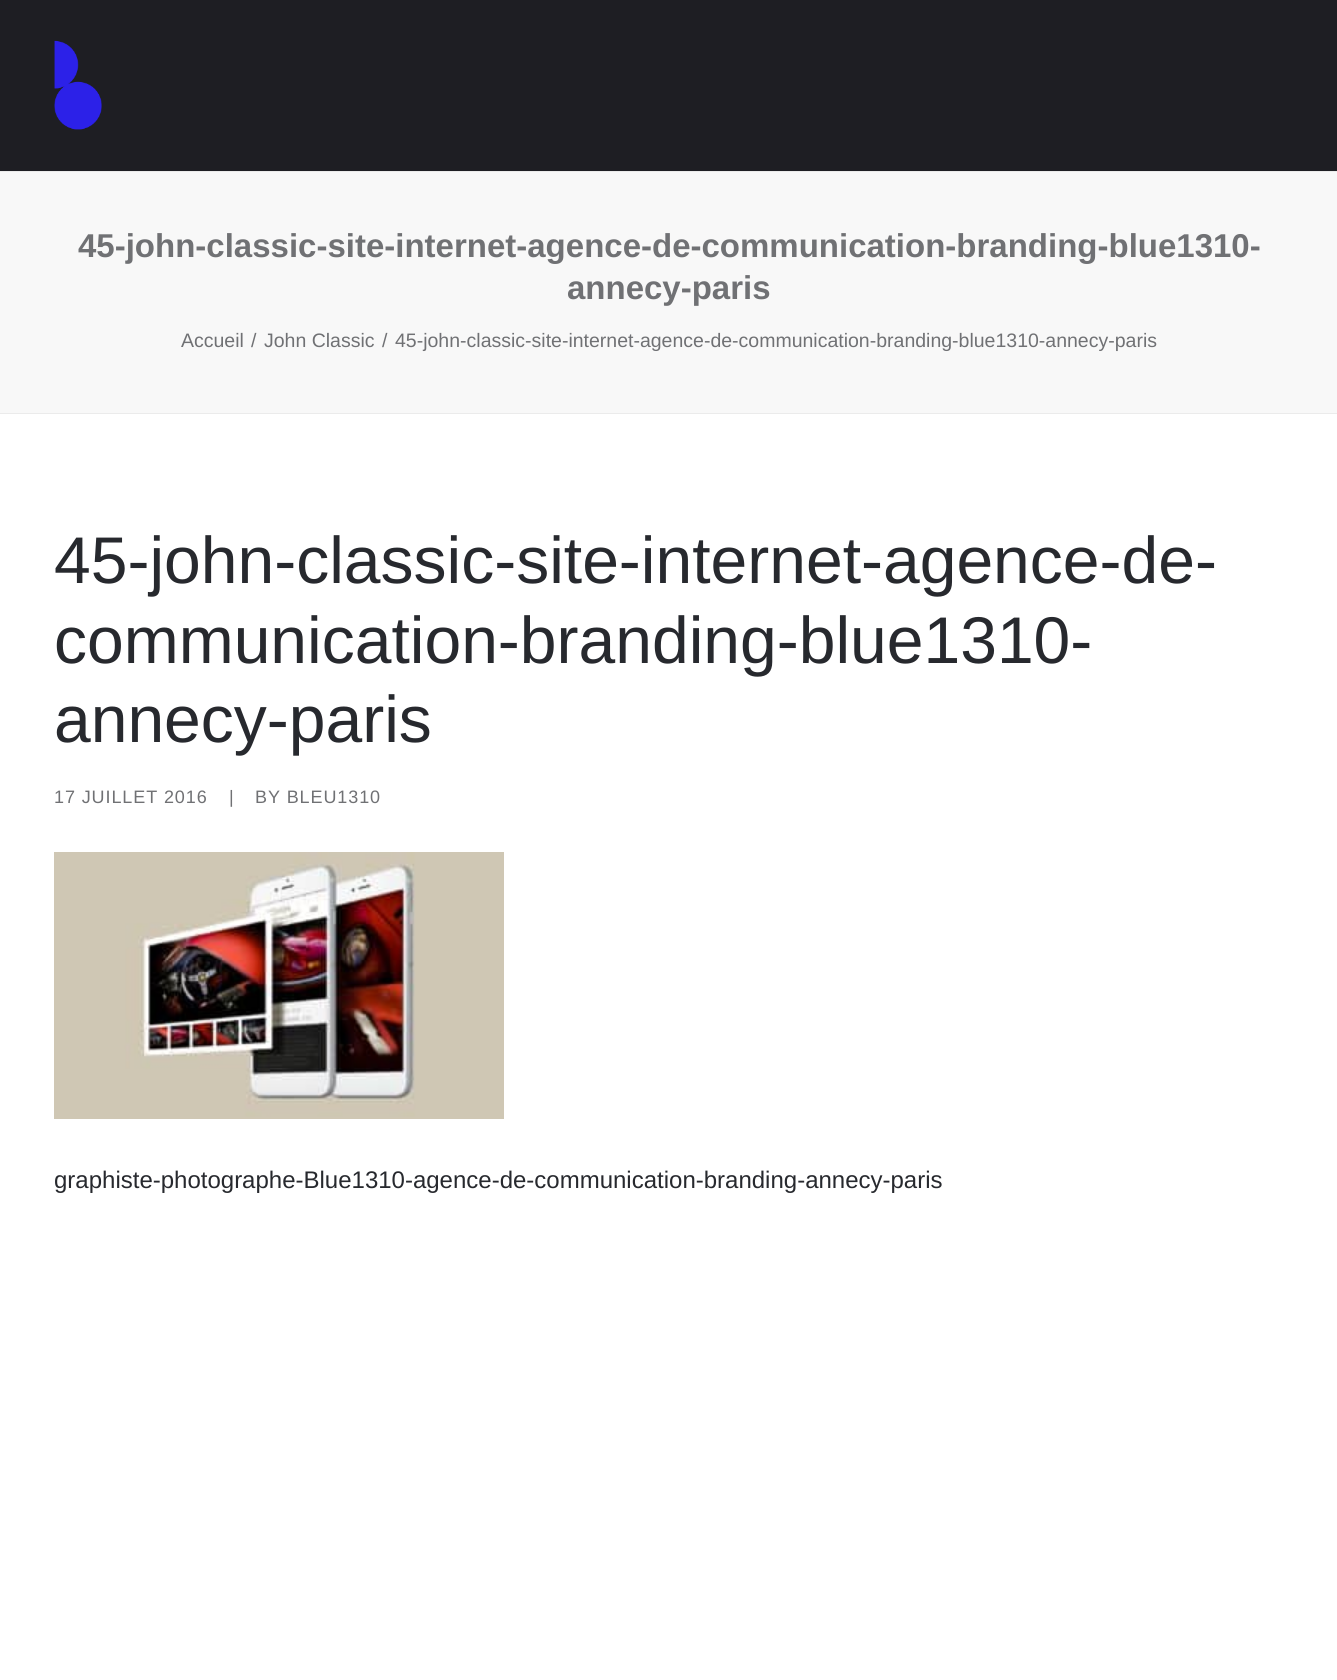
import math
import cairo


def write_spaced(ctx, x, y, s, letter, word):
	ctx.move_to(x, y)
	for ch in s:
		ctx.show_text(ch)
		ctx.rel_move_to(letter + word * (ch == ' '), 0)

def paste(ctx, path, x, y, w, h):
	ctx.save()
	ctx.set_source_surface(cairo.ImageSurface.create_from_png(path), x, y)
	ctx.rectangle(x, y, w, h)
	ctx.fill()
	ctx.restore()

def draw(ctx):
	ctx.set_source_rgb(1, 1, 1)
	ctx.paint()
	ctx.set_source_rgb(0.118, 0.118, 0.137)
	ctx.rectangle(0, 0, 1337, 171)
	ctx.fill()
	paste(ctx, 'media/1.png', 54, 40, 48, 90)
	ctx.set_source_rgb(0.969, 0.969, 0.969)
	ctx.rectangle(0, 172, 1337, 241)
	ctx.fill()
	ctx.set_source_rgb(0.918, 0.918, 0.918)
	ctx.rectangle(0, 171, 1337, 1)
	ctx.rectangle(0, 413, 1337, 1)
	ctx.fill()
	ctx.select_font_face('Liberation Sans', cairo.FONT_SLANT_NORMAL, cairo.FONT_WEIGHT_BOLD)
	ctx.set_font_size(33)
	ctx.set_source_rgb(0.439, 0.443, 0.455)
	ctx.move_to(78, 257)
	ctx.show_text('45-john-classic-site-internet-agence-de-communication-branding-blue1310-')
	ctx.move_to(567, 299)
	ctx.show_text('annecy-paris')
	ctx.select_font_face('Liberation Sans')
	ctx.set_font_size(19.5)
	for x, y, s in [
		(181, 347, 'Accueil'),
		(251, 347, '/'),
		(264, 347, 'John Classic'),
		(382, 347, '/'),
		(395, 347, '45-john-classic-site-internet-agence-de-communication-branding-blue1310-annecy-paris'),
	]:
		ctx.move_to(x, y)
		ctx.show_text(s)
	ctx.set_font_size(66)
	ctx.set_source_rgb(0.153, 0.161, 0.18)
	for x, y, s in [
		(54, 583, '45-john-classic-site-internet-agence-de-'),
		(54, 663, 'communication-branding-blue1310-'),
		(54, 742, 'annecy-paris'),
	]:
		ctx.move_to(x, y)
		ctx.show_text(s)
	ctx.set_font_size(18)
	ctx.set_source_rgb(0.439, 0.443, 0.455)
	for x, y, s in [
		(54, 803, '17 JUILLET 2016'),
		(229, 803, '|'),
		(255, 803, 'BY BLEU1310'),
	]:
		write_spaced(ctx, x, y, s, 0.9, 0)
	paste(ctx, 'media/2.png', 54, 852, 450, 267)
	ctx.set_font_size(24)
	ctx.set_source_rgb(0.153, 0.161, 0.18)
	ctx.move_to(54, 1188)
	ctx.show_text('graphiste-photographe-Blue1310-agence-de-communication-branding-annecy-paris')


surface = cairo.ImageSurface(cairo.FORMAT_RGB24, 1337, 1680)
ctx = cairo.Context(surface)
options = cairo.FontOptions()
options.set_hint_metrics(cairo.HINT_METRICS_OFF)
options.set_hint_style(cairo.HINT_STYLE_NONE)
ctx.set_font_options(options)
ctx.set_miter_limit(4)
draw(ctx)
surface.write_to_png('image.png')
